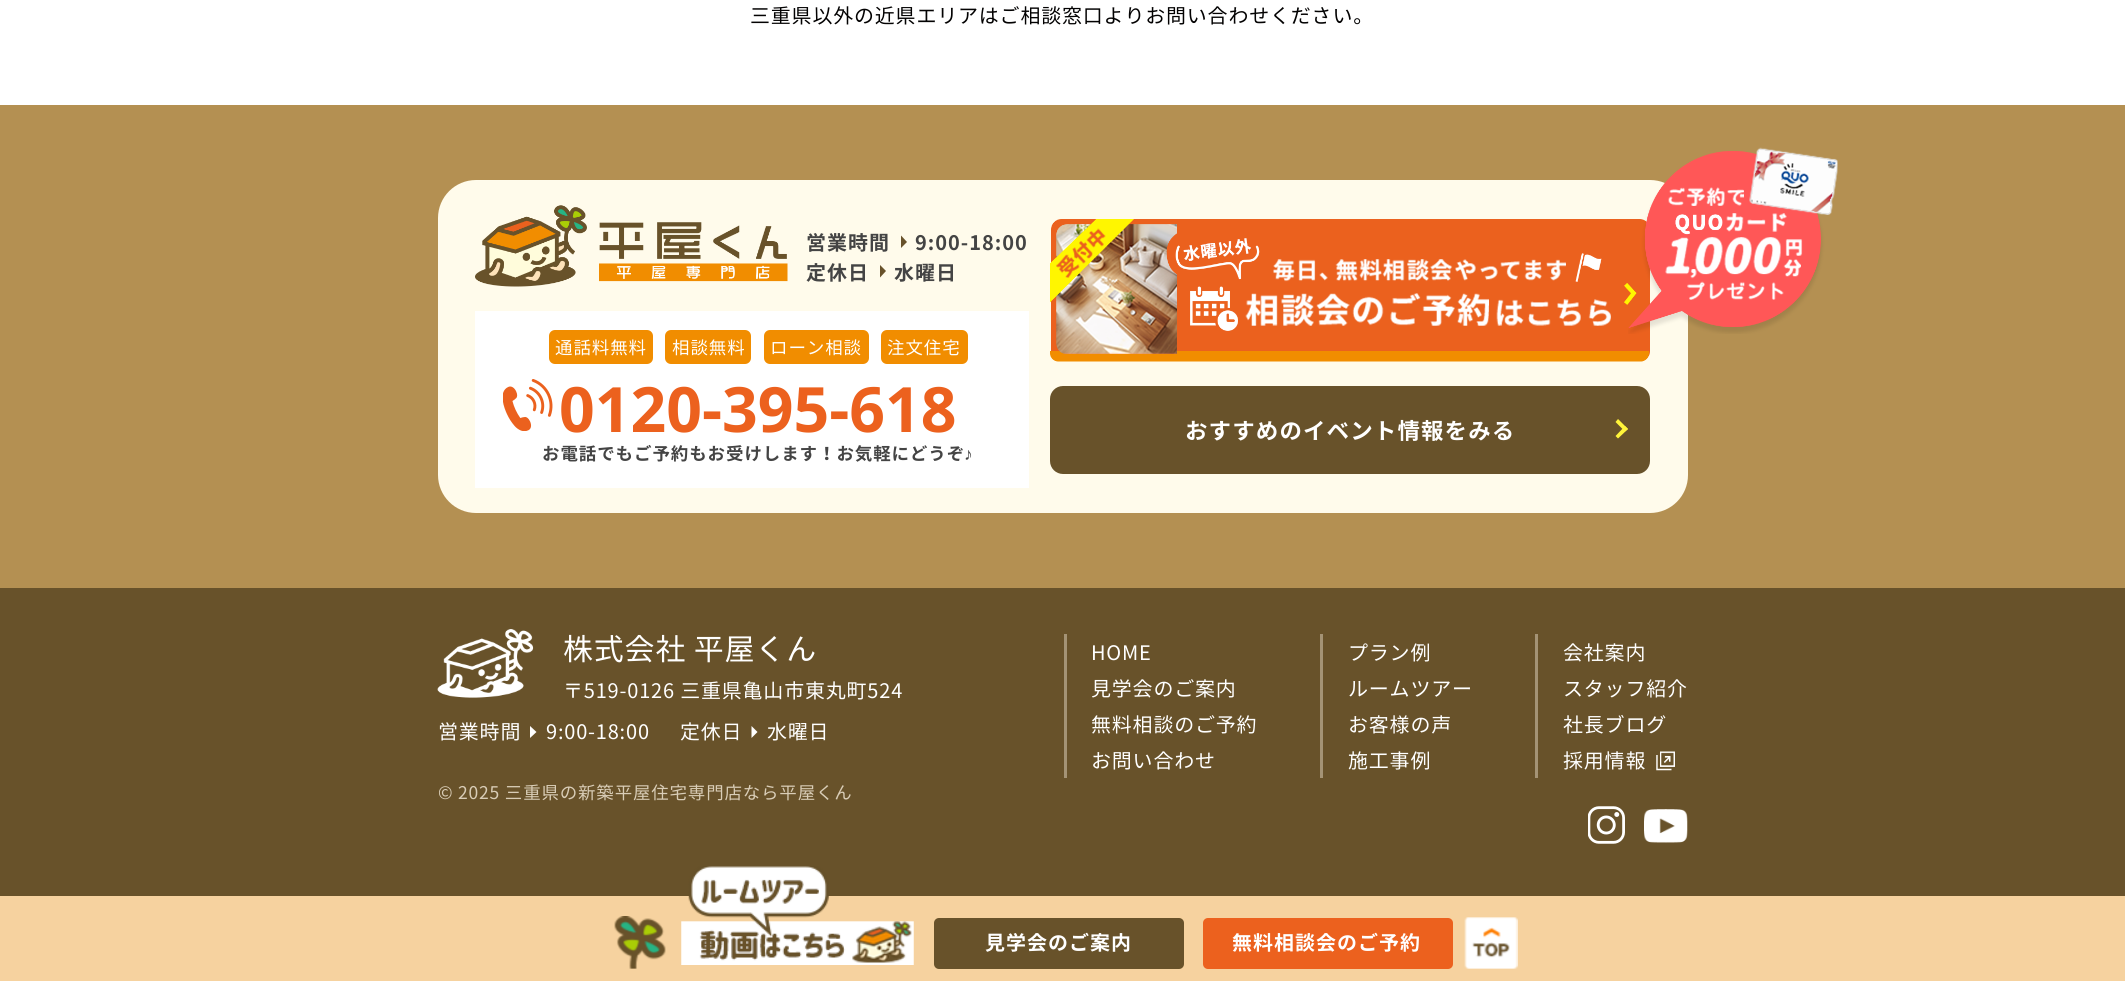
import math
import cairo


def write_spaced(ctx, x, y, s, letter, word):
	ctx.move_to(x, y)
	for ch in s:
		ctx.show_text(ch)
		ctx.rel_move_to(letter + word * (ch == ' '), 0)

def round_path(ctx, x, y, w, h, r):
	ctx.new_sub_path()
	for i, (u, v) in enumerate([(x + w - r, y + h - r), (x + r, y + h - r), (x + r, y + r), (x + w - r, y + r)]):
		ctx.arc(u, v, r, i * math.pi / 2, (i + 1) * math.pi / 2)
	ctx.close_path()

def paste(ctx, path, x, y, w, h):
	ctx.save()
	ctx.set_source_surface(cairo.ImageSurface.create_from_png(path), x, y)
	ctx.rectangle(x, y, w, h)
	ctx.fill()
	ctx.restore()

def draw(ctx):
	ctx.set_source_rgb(1, 1, 1)
	ctx.paint()
	ctx.select_font_face('Noto Sans JP')
	ctx.set_font_size(20)
	ctx.set_source_rgb(0.012, 0.008, 0.008)
	write_spaced(ctx, 750, 23, '三重県以外の近県エリアはご相談窓口よりお問い合わせください。', 0.8, 0)
	ctx.set_source_rgb(0.706, 0.565, 0.322)
	ctx.rectangle(0, 105, 2125, 483)
	ctx.fill()
	ctx.set_source_rgb(1, 0.984, 0.918)
	round_path(ctx, 438, 180, 1250, 333, 38)
	ctx.fill()
	paste(ctx, 'media/1.png', 475, 205, 313, 82)
	ctx.select_font_face('Noto Sans JP', cairo.FONT_SLANT_NORMAL, cairo.FONT_WEIGHT_BOLD)
	ctx.set_source_rgb(0.267, 0.267, 0.267)
	write_spaced(ctx, 806, 250, '営業時間', 1, 0)
	ctx.set_source_rgb(0.408, 0.322, 0.165)
	ctx.new_path()
	ctx.move_to(901, 235.5)
	ctx.line_to(907, 242)
	ctx.line_to(901, 248)
	ctx.close_path()
	ctx.fill()
	ctx.set_source_rgb(0.267, 0.267, 0.267)
	write_spaced(ctx, 915, 250, '9:00-18:00', 1, 0)
	write_spaced(ctx, 806, 280, '定休日', 1, 0)
	ctx.set_source_rgb(0.408, 0.322, 0.165)
	ctx.new_path()
	ctx.move_to(880, 265)
	ctx.line_to(886, 271)
	ctx.line_to(880, 277.5)
	ctx.close_path()
	ctx.fill()
	ctx.set_source_rgb(0.267, 0.267, 0.267)
	write_spaced(ctx, 894, 280, '水曜日', 1, 0)
	ctx.set_source_rgb(1, 1, 1)
	ctx.rectangle(475, 311, 554, 177)
	ctx.fill()
	ctx.set_source_rgb(0.945, 0.553, 0)
	round_path(ctx, 549, 330, 104, 34, 6)
	ctx.fill()
	ctx.select_font_face('Noto Sans JP')
	ctx.set_font_size(17.5)
	ctx.set_source_rgb(1, 1, 1)
	write_spaced(ctx, 555, 354, '通話料無料', 0.9, 0)
	ctx.set_source_rgb(0.945, 0.553, 0)
	round_path(ctx, 665, 330, 86, 34, 6)
	ctx.fill()
	ctx.set_source_rgb(1, 1, 1)
	write_spaced(ctx, 672, 354, '相談無料', 0.9, 0)
	ctx.set_source_rgb(0.945, 0.553, 0)
	round_path(ctx, 764, 330, 105, 34, 6)
	ctx.fill()
	ctx.set_source_rgb(1, 1, 1)
	write_spaced(ctx, 770, 354, 'ローン相談', 0.9, 0)
	ctx.set_source_rgb(0.945, 0.553, 0)
	round_path(ctx, 881, 330, 87, 34, 6)
	ctx.fill()
	ctx.set_source_rgb(1, 1, 1)
	write_spaced(ctx, 887, 354, '注文住宅', 0.9, 0)
	paste(ctx, 'media/2.png', 503, 379, 50, 52)
	ctx.select_font_face('Open Sans', cairo.FONT_SLANT_NORMAL, cairo.FONT_WEIGHT_BOLD)
	ctx.set_font_size(62.5)
	ctx.set_source_rgb(0.922, 0.38, 0.118)
	ctx.move_to(559, 432)
	ctx.show_text('0120-395-618')
	ctx.select_font_face('Noto Sans JP', cairo.FONT_SLANT_NORMAL, cairo.FONT_WEIGHT_BOLD)
	ctx.set_font_size(17.5)
	ctx.set_source_rgb(0.267, 0.267, 0.267)
	write_spaced(ctx, 542, 460, 'お電話でもご予約もお受けします！お気軽にどうぞ', 0.9, 0)
	ctx.select_font_face('Liberation Serif', cairo.FONT_SLANT_NORMAL, cairo.FONT_WEIGHT_BOLD)
	write_spaced(ctx, 964, 460, '♪', 0.9, 0)
	paste(ctx, 'media/3.png', 1050, 219, 600, 143)
	paste(ctx, 'media/4.png', 1628, 147, 210, 187)
	ctx.set_source_rgb(0.408, 0.322, 0.165)
	round_path(ctx, 1050, 386, 600, 88, 13)
	ctx.fill()
	ctx.select_font_face('Noto Sans JP', cairo.FONT_SLANT_NORMAL, cairo.FONT_WEIGHT_BOLD)
	ctx.set_font_size(22.5)
	ctx.set_source_rgb(1, 1, 1)
	write_spaced(ctx, 1185, 439, 'おすすめのイベント情報をみる', 1.1, 0)
	ctx.set_source_rgb(1, 0.957, 0.227)
	ctx.new_path()
	ctx.move_to(1618, 419)
	ctx.line_to(1628, 429)
	ctx.line_to(1625, 431.5)
	ctx.line_to(1615.5, 422)
	ctx.close_path()
	ctx.fill()
	ctx.new_path()
	ctx.move_to(1625, 426)
	ctx.line_to(1628, 429)
	ctx.line_to(1618, 438.5)
	ctx.line_to(1615.5, 436)
	ctx.close_path()
	ctx.fill()
	ctx.set_source_rgb(0.408, 0.322, 0.165)
	ctx.rectangle(0, 588, 2125, 308)
	ctx.fill()
	paste(ctx, 'media/5.png', 437, 629, 97, 69)
	ctx.select_font_face('Noto Sans JP')
	ctx.set_font_size(30)
	ctx.set_source_rgb(1, 1, 1)
	write_spaced(ctx, 563, 660, '株式会社 平屋くん', 0.8, 0)
	ctx.set_font_size(20)
	write_spaced(ctx, 563, 698, '〒519-0126 三重県亀山市東丸町524', 0.8, 0)
	write_spaced(ctx, 438, 739, '営業時間', 0.8, 0)
	ctx.new_path()
	ctx.move_to(530, 726)
	ctx.line_to(536.5, 732)
	ctx.line_to(530, 738)
	ctx.close_path()
	ctx.fill()
	write_spaced(ctx, 546, 739, '9:00-18:00', 0.8, 0)
	write_spaced(ctx, 680, 739, '定休日', 0.8, 0)
	ctx.new_path()
	ctx.move_to(751.5, 726)
	ctx.line_to(757.5, 732)
	ctx.line_to(751.5, 738)
	ctx.close_path()
	ctx.fill()
	write_spaced(ctx, 767, 739, '水曜日', 0.8, 0)
	ctx.set_font_size(17.5)
	ctx.set_source_rgb(0.851, 0.804, 0.718)
	write_spaced(ctx, 438, 799, '© 2025 三重県の新築平屋住宅専門店なら平屋くん', 0.8, 0)
	ctx.set_source_rgb(0.643, 0.576, 0.459)
	ctx.rectangle(1064, 634, 3, 144)
	ctx.fill()
	ctx.set_font_size(20)
	ctx.set_source_rgb(1, 1, 1)
	for x, y, s in [
		(1091, 660, 'HOME'),
		(1091, 696, '見学会のご案内'),
		(1091, 732, '無料相談のご予約'),
		(1091, 768, 'お問い合わせ'),
	]:
		write_spaced(ctx, x, y, s, 0.8, 0)
	ctx.set_source_rgb(0.643, 0.576, 0.459)
	ctx.rectangle(1320, 634, 3, 144)
	ctx.fill()
	ctx.set_source_rgb(1, 1, 1)
	for x, y, s in [
		(1348, 660, 'プラン例'),
		(1348, 696, 'ルームツアー'),
		(1348, 732, 'お客様の声'),
		(1348, 768, '施工事例'),
	]:
		write_spaced(ctx, x, y, s, 0.8, 0)
	ctx.set_source_rgb(0.643, 0.576, 0.459)
	ctx.rectangle(1535, 634, 3, 144)
	ctx.fill()
	ctx.set_source_rgb(1, 1, 1)
	for x, y, s in [
		(1563, 660, '会社案内'),
		(1563, 696, 'スタッフ紹介'),
		(1563, 732, '社長ブログ'),
		(1563, 768, '採用情報'),
	]:
		write_spaced(ctx, x, y, s, 0.8, 0)
	paste(ctx, 'media/6.png', 1656, 751, 19, 20)
	paste(ctx, 'media/7.png', 1588, 806, 37, 38)
	paste(ctx, 'media/8.png', 1644, 809, 44, 34)
	ctx.set_source_rgb(0.961, 0.824, 0.624)
	ctx.rectangle(0, 896, 2125, 85)
	ctx.fill()
	paste(ctx, 'media/9.png', 614, 916, 52, 53)
	paste(ctx, 'media/10.png', 681, 866, 233, 99)
	ctx.set_source_rgb(0.408, 0.322, 0.165)
	round_path(ctx, 934, 918, 250, 51, 5)
	ctx.fill()
	ctx.select_font_face('Noto Sans JP', cairo.FONT_SLANT_NORMAL, cairo.FONT_WEIGHT_BOLD)
	ctx.set_source_rgb(1, 1, 1)
	write_spaced(ctx, 985, 950, '見学会のご案内', 1, 0)
	ctx.set_source_rgb(0.922, 0.38, 0.118)
	round_path(ctx, 1203, 918, 250, 51, 5)
	ctx.fill()
	ctx.set_source_rgb(1, 1, 1)
	write_spaced(ctx, 1232, 950, '無料相談会のご予約', 1, 0)
	paste(ctx, 'media/11.png', 1464, 917, 54, 52)


surface = cairo.ImageSurface(cairo.FORMAT_RGB24, 2125, 981)
ctx = cairo.Context(surface)
options = cairo.FontOptions()
options.set_hint_metrics(cairo.HINT_METRICS_OFF)
options.set_hint_style(cairo.HINT_STYLE_NONE)
ctx.set_font_options(options)
ctx.set_miter_limit(4)
draw(ctx)
surface.write_to_png('image.png')
